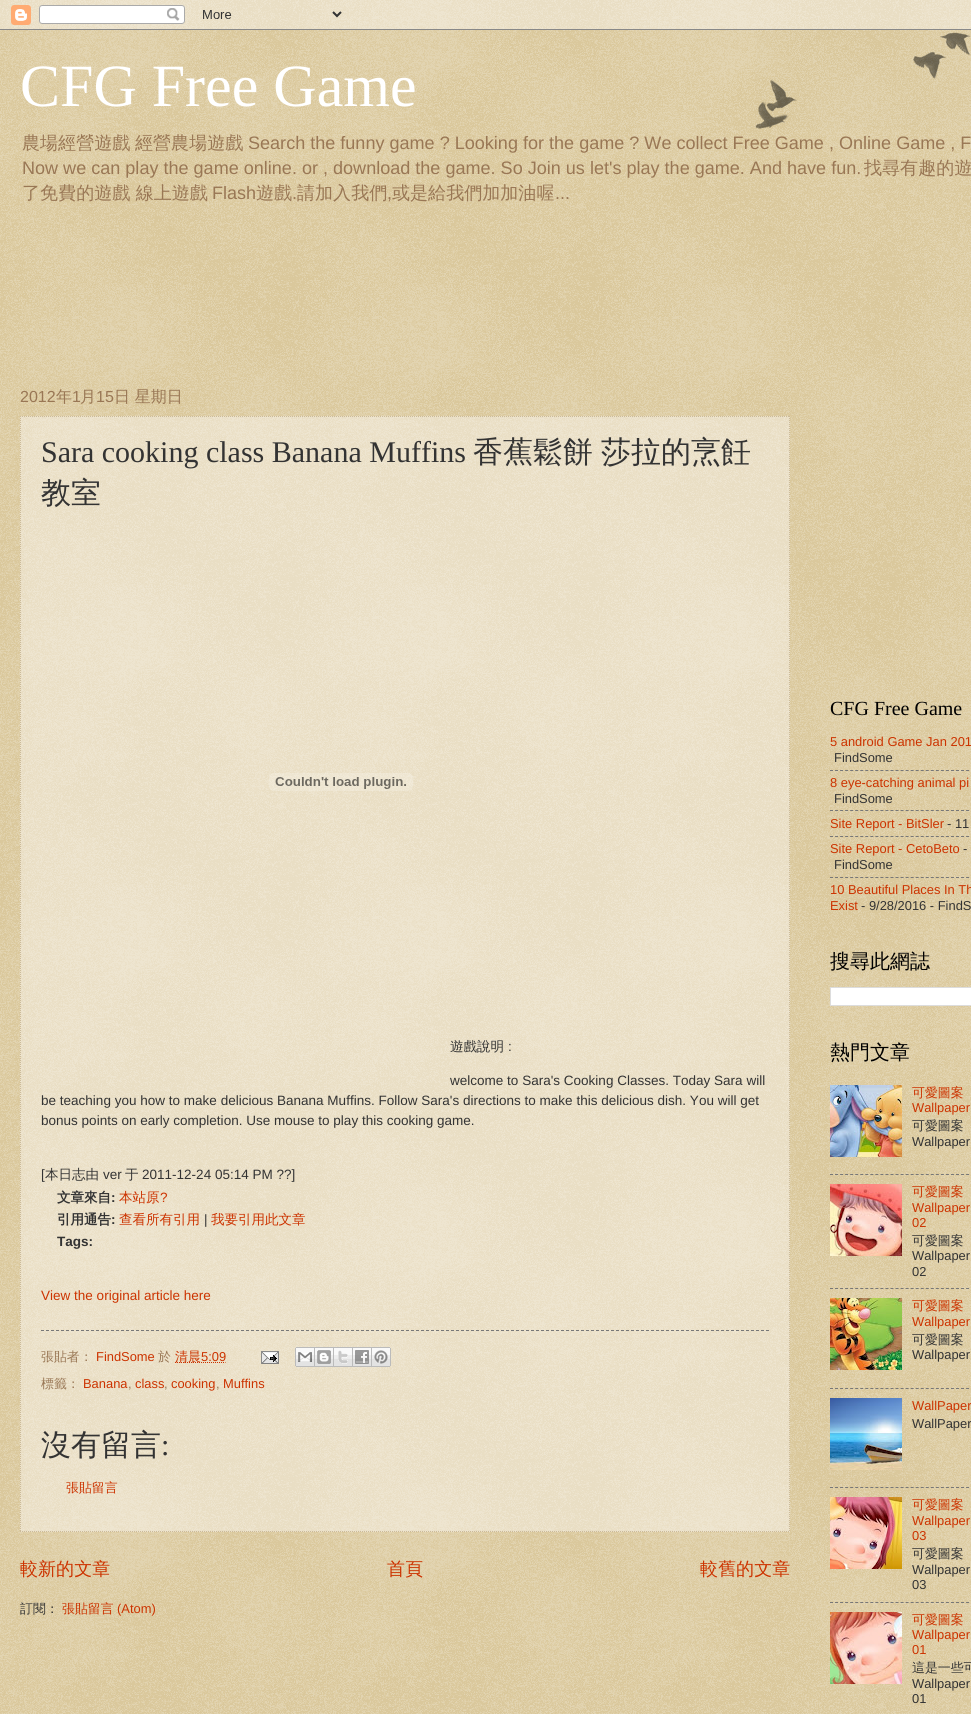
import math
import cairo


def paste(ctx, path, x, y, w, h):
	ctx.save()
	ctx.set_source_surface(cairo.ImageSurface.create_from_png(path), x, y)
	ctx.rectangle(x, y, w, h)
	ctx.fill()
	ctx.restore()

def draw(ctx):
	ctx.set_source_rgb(0.753, 0.631, 0.329)
	ctx.paint()
	paste(ctx, 'media/1.png', 0, 0, 971, 1714)
	paste(ctx, 'media/2.png', 0, 0, 971, 30)
	paste(ctx, 'media/3.png', 755, 32, 216, 97)
	ctx.select_font_face('Liberation Serif')
	ctx.set_font_size(60)
	ctx.set_source_rgb(1, 1, 1)
	ctx.move_to(20, 106)
	ctx.show_text('CFG Free Game')
	ctx.select_font_face('WenQuanYi Zen Hei Medium')
	ctx.set_font_size(18.05)
	ctx.set_source_rgb(0.6, 0.467, 0.333)
	ctx.move_to(22, 149)
	ctx.show_text('農場經營遊戲')
	ctx.move_to(135, 149)
	ctx.show_text('經營農場遊戲')
	ctx.select_font_face('Liberation Sans')
	ctx.move_to(248, 149)
	ctx.show_text('Search the funny game ? Looking for the game ? We collect Free Game , Online Game , F')
	ctx.move_to(22, 174)
	ctx.show_text('Now we can play the game online. or , download the game. So Join us let\'s play the game. And have fun.')
	ctx.select_font_face('WenQuanYi Zen Hei Medium')
	ctx.move_to(864, 174)
	ctx.show_text('找尋有趣的遊')
	ctx.move_to(22, 199)
	ctx.show_text('了免費的遊戲 線上遊戲')
	ctx.select_font_face('Liberation Sans')
	ctx.move_to(212, 199)
	ctx.show_text('Flash')
	ctx.select_font_face('WenQuanYi Zen Hei Medium')
	ctx.move_to(256, 199)
	ctx.show_text('遊戲')
	ctx.select_font_face('Liberation Sans')
	ctx.move_to(292, 199)
	ctx.show_text('.')
	ctx.select_font_face('WenQuanYi Zen Hei Medium')
	ctx.move_to(297, 199)
	ctx.show_text('請加入我們')
	ctx.select_font_face('Liberation Sans')
	ctx.move_to(387, 199)
	ctx.show_text(',')
	ctx.select_font_face('WenQuanYi Zen Hei Medium')
	ctx.move_to(392, 199)
	ctx.show_text('或是給我們加加油喔')
	ctx.select_font_face('Liberation Sans')
	ctx.move_to(555, 199)
	ctx.show_text('...')
	ctx.set_font_size(16)
	ctx.move_to(20, 402)
	ctx.show_text('2012')
	ctx.select_font_face('WenQuanYi Zen Hei Medium')
	ctx.move_to(56, 402)
	ctx.show_text('年')
	ctx.select_font_face('Liberation Sans')
	ctx.move_to(72, 402)
	ctx.show_text('1')
	ctx.select_font_face('WenQuanYi Zen Hei Medium')
	ctx.move_to(80, 402)
	ctx.show_text('月')
	ctx.select_font_face('Liberation Sans')
	ctx.move_to(96, 402)
	ctx.show_text('15')
	ctx.select_font_face('WenQuanYi Zen Hei Medium')
	ctx.move_to(114, 402)
	ctx.show_text('日 星期日')
	ctx.set_source_rgba(1, 1, 1, 0.4)
	ctx.rectangle(20, 416, 770, 1116)
	ctx.fill()
	ctx.new_path()
	ctx.move_to(20, 416.5)
	ctx.line_to(790, 416.5)
	ctx.set_source_rgb(0.8, 0.733, 0.6)
	ctx.set_line_width(1)
	ctx.set_dash([1, 1])
	ctx.stroke()
	ctx.new_path()
	ctx.move_to(789.5, 416)
	ctx.line_to(789.5, 1532)
	ctx.stroke()
	ctx.new_path()
	ctx.move_to(20, 1531.5)
	ctx.line_to(790, 1531.5)
	ctx.stroke()
	ctx.new_path()
	ctx.move_to(20.5, 416)
	ctx.line_to(20.5, 1532)
	ctx.stroke()
	ctx.select_font_face('Liberation Serif')
	ctx.set_font_size(30)
	ctx.set_source_rgb(0.2, 0.2, 0.2)
	ctx.move_to(41, 462)
	ctx.show_text('Sara cooking class Banana Muffins')
	ctx.select_font_face('WenQuanYi Zen Hei Medium')
	for x, y, s in [
		(473, 462, '香蕉鬆餅'),
		(601, 462, '莎拉的烹飪'),
		(41, 503, '教室'),
	]:
		ctx.move_to(x, y)
		ctx.show_text(s)
	paste(ctx, 'media/4.png', 269, 773, 144, 18)
	ctx.set_font_size(13.52)
	ctx.move_to(450, 1051)
	ctx.show_text('遊戲說明')
	ctx.select_font_face('Liberation Sans')
	for x, y, s in [
		(508, 1051, ':'),
		(450, 1085, 'welcome to Sara\'s Cooking Classes. Today Sara will'),
		(41, 1105, 'be teaching you how to make delicious Banana Muffins. Follow Sara\'s directions to make this delicious dish. You will get'),
		(41, 1125, 'bonus points on early completion. Use mouse to play this cooking game.'),
		(41, 1179, '['),
	]:
		ctx.move_to(x, y)
		ctx.show_text(s)
	ctx.select_font_face('WenQuanYi Zen Hei Medium')
	ctx.move_to(45, 1179)
	ctx.show_text('本日志由')
	ctx.select_font_face('Liberation Sans')
	ctx.move_to(103, 1179)
	ctx.show_text('ver')
	ctx.select_font_face('WenQuanYi Zen Hei Medium')
	ctx.move_to(125, 1179)
	ctx.show_text('于')
	ctx.select_font_face('Liberation Sans')
	ctx.move_to(142, 1179)
	ctx.show_text('2011-12-24 05:14 PM ??]')
	ctx.select_font_face('WenQuanYi Zen Hei', cairo.FONT_SLANT_NORMAL, cairo.FONT_WEIGHT_BOLD)
	ctx.move_to(57, 1202)
	ctx.show_text('文章來自')
	ctx.select_font_face('Liberation Sans', cairo.FONT_SLANT_NORMAL, cairo.FONT_WEIGHT_BOLD)
	ctx.move_to(111, 1202)
	ctx.show_text(':')
	ctx.select_font_face('WenQuanYi Zen Hei Medium')
	ctx.set_source_rgb(0.8, 0.2, 0)
	ctx.move_to(119, 1202)
	ctx.show_text('本站原')
	ctx.select_font_face('Liberation Sans')
	ctx.move_to(160, 1202)
	ctx.show_text('?')
	ctx.select_font_face('WenQuanYi Zen Hei', cairo.FONT_SLANT_NORMAL, cairo.FONT_WEIGHT_BOLD)
	ctx.set_source_rgb(0.2, 0.2, 0.2)
	ctx.move_to(57, 1224)
	ctx.show_text('引用通告')
	ctx.select_font_face('Liberation Sans', cairo.FONT_SLANT_NORMAL, cairo.FONT_WEIGHT_BOLD)
	ctx.move_to(111, 1224)
	ctx.show_text(':')
	ctx.select_font_face('WenQuanYi Zen Hei Medium')
	ctx.set_source_rgb(0.8, 0.2, 0)
	ctx.move_to(119, 1224)
	ctx.show_text('查看所有引用')
	ctx.select_font_face('Liberation Sans')
	ctx.set_source_rgb(0.2, 0.2, 0.2)
	ctx.move_to(204, 1224)
	ctx.show_text('|')
	ctx.select_font_face('WenQuanYi Zen Hei Medium')
	ctx.set_source_rgb(0.8, 0.2, 0)
	ctx.move_to(211, 1224)
	ctx.show_text('我要引用此文章')
	ctx.select_font_face('Liberation Sans', cairo.FONT_SLANT_NORMAL, cairo.FONT_WEIGHT_BOLD)
	ctx.set_source_rgb(0.2, 0.2, 0.2)
	ctx.move_to(57, 1246)
	ctx.show_text('Tags:')
	ctx.select_font_face('Liberation Sans')
	ctx.set_source_rgb(0.8, 0.2, 0)
	ctx.move_to(41, 1300)
	ctx.show_text('View the original article here')
	ctx.new_path()
	ctx.move_to(41, 1330.5)
	ctx.line_to(769, 1330.5)
	ctx.set_source_rgb(0.467, 0.467, 0.467)
	ctx.set_dash([3, 2])
	ctx.stroke()
	ctx.select_font_face('WenQuanYi Zen Hei Medium')
	ctx.set_font_size(12.9)
	ctx.set_source_rgb(0.6, 0.467, 0.333)
	ctx.move_to(41, 1361)
	ctx.show_text('張貼者：')
	ctx.select_font_face('Liberation Sans')
	ctx.set_source_rgb(0.8, 0.2, 0)
	ctx.move_to(96, 1361)
	ctx.show_text('FindSome')
	ctx.select_font_face('WenQuanYi Zen Hei Medium')
	ctx.set_source_rgb(0.6, 0.467, 0.333)
	ctx.move_to(158, 1361)
	ctx.show_text('於')
	ctx.new_path()
	ctx.move_to(175, 1362.5)
	ctx.line_to(225.5, 1362.5)
	ctx.set_source_rgb(0.8, 0.2, 0)
	ctx.set_dash([1, 1])
	ctx.stroke()
	ctx.move_to(175, 1361)
	ctx.show_text('清晨')
	ctx.select_font_face('Liberation Sans')
	ctx.move_to(201, 1361)
	ctx.show_text('5:09')
	paste(ctx, 'media/5.png', 261, 1351, 18, 13)
	paste(ctx, 'media/6.png', 295, 1347, 20, 20)
	paste(ctx, 'media/7.png', 315, 1347, 19, 20)
	paste(ctx, 'media/8.png', 334, 1347, 19, 20)
	paste(ctx, 'media/9.png', 353, 1347, 19, 20)
	paste(ctx, 'media/10.png', 372, 1347, 19, 20)
	ctx.select_font_face('WenQuanYi Zen Hei Medium')
	ctx.set_source_rgb(0.6, 0.467, 0.333)
	ctx.move_to(41, 1388)
	ctx.show_text('標籤：')
	ctx.select_font_face('Liberation Sans')
	ctx.set_source_rgb(0.8, 0.2, 0)
	ctx.move_to(83, 1388)
	ctx.show_text('Banana')
	ctx.set_source_rgb(0.6, 0.467, 0.333)
	ctx.move_to(128, 1388)
	ctx.show_text(',')
	ctx.set_source_rgb(0.8, 0.2, 0)
	ctx.move_to(135, 1388)
	ctx.show_text('class')
	ctx.set_source_rgb(0.6, 0.467, 0.333)
	ctx.move_to(164, 1388)
	ctx.show_text(',')
	ctx.set_source_rgb(0.8, 0.2, 0)
	ctx.move_to(171, 1388)
	ctx.show_text('cooking')
	ctx.set_source_rgb(0.6, 0.467, 0.333)
	ctx.move_to(216, 1388)
	ctx.show_text(',')
	ctx.set_source_rgb(0.8, 0.2, 0)
	ctx.move_to(223, 1388)
	ctx.show_text('Muffins')
	ctx.select_font_face('WenQuanYi Zen Hei Medium')
	ctx.set_font_size(30)
	ctx.set_source_rgb(0.2, 0.2, 0.2)
	ctx.move_to(41, 1455)
	ctx.show_text('沒有留言')
	ctx.select_font_face('Liberation Serif')
	ctx.move_to(161, 1455)
	ctx.show_text(':')
	ctx.select_font_face('WenQuanYi Zen Hei Medium')
	ctx.set_font_size(12.9)
	ctx.set_source_rgb(0.8, 0.2, 0)
	ctx.move_to(66, 1492)
	ctx.show_text('張貼留言')
	ctx.set_font_size(18.05)
	for x, y, s in [
		(20, 1575, '較新的文章'),
		(387, 1575, '首頁'),
		(700, 1575, '較舊的文章'),
	]:
		ctx.move_to(x, y)
		ctx.show_text(s)
	ctx.set_font_size(12.9)
	ctx.set_source_rgb(0.2, 0.2, 0.2)
	ctx.move_to(20, 1613)
	ctx.show_text('訂閱：')
	ctx.set_source_rgb(0.8, 0.2, 0)
	ctx.move_to(62, 1613)
	ctx.show_text('張貼留言')
	ctx.select_font_face('Liberation Sans')
	ctx.move_to(117, 1613)
	ctx.show_text('(Atom)')
	ctx.select_font_face('Liberation Serif')
	ctx.set_font_size(20)
	ctx.set_source_rgb(0, 0, 0)
	ctx.move_to(830, 715)
	ctx.show_text('CFG Free Game')
	ctx.select_font_face('Liberation Sans')
	ctx.set_font_size(12.9)
	ctx.set_source_rgb(0.8, 0.2, 0)
	ctx.move_to(830, 746)
	ctx.show_text('5 android Game Jan 201')
	ctx.set_source_rgb(0.2, 0.2, 0.2)
	ctx.move_to(834, 762)
	ctx.show_text('FindSome')
	ctx.new_path()
	ctx.move_to(830, 770.5)
	ctx.line_to(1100, 770.5)
	ctx.set_source_rgb(0.467, 0.467, 0.467)
	ctx.set_dash([3, 2.04])
	ctx.stroke()
	ctx.set_source_rgb(0.8, 0.2, 0)
	ctx.move_to(830, 787)
	ctx.show_text('8 eye-catching animal pi')
	ctx.set_source_rgb(0.2, 0.2, 0.2)
	ctx.move_to(834, 803)
	ctx.show_text('FindSome')
	ctx.new_path()
	ctx.move_to(830, 810.5)
	ctx.line_to(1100, 810.5)
	ctx.set_source_rgb(0.467, 0.467, 0.467)
	ctx.stroke()
	ctx.set_source_rgb(0.8, 0.2, 0)
	ctx.move_to(830, 828)
	ctx.show_text('Site Report - BitSler')
	ctx.set_source_rgb(0.2, 0.2, 0.2)
	ctx.move_to(947, 828)
	ctx.show_text('- 11')
	ctx.new_path()
	ctx.move_to(830, 836.5)
	ctx.line_to(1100, 836.5)
	ctx.set_source_rgb(0.467, 0.467, 0.467)
	ctx.stroke()
	ctx.set_source_rgb(0.8, 0.2, 0)
	ctx.move_to(830, 853)
	ctx.show_text('Site Report - CetoBeto')
	ctx.set_source_rgb(0.2, 0.2, 0.2)
	ctx.move_to(963, 853)
	ctx.show_text('-')
	ctx.move_to(834, 869)
	ctx.show_text('FindSome')
	ctx.new_path()
	ctx.move_to(830, 877.5)
	ctx.line_to(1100, 877.5)
	ctx.set_source_rgb(0.467, 0.467, 0.467)
	ctx.stroke()
	ctx.set_source_rgb(0.8, 0.2, 0)
	ctx.move_to(830, 894)
	ctx.show_text('10 Beautiful Places In Th')
	ctx.move_to(830, 910)
	ctx.show_text('Exist')
	ctx.set_source_rgb(0.2, 0.2, 0.2)
	ctx.move_to(861, 910)
	ctx.show_text('- 9/28/2016 - FindS')
	ctx.select_font_face('WenQuanYi Zen Hei Medium')
	ctx.set_font_size(20)
	ctx.set_source_rgb(0, 0, 0)
	ctx.move_to(830, 968)
	ctx.show_text('搜尋此網誌')
	ctx.set_source_rgb(1, 1, 1)
	ctx.rectangle(830.5, 987.5, 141, 18)
	ctx.fill_preserve()
	ctx.set_source_rgb(0.867, 0.867, 0.867)
	ctx.set_dash([])
	ctx.stroke()
	ctx.set_source_rgb(0, 0, 0)
	ctx.move_to(830, 1059)
	ctx.show_text('熱門文章')
	paste(ctx, 'media/11.png', 830, 1085, 72, 72)
	ctx.set_font_size(12.9)
	ctx.set_source_rgb(0.8, 0.2, 0)
	ctx.move_to(912, 1097)
	ctx.show_text('可愛圖案')
	ctx.select_font_face('Liberation Sans')
	ctx.move_to(912, 1112)
	ctx.show_text('Wallpaper')
	ctx.select_font_face('WenQuanYi Zen Hei Medium')
	ctx.set_source_rgb(0.2, 0.2, 0.2)
	ctx.move_to(912, 1130)
	ctx.show_text('可愛圖案')
	ctx.select_font_face('Liberation Sans')
	ctx.move_to(912, 1146)
	ctx.show_text('Wallpaper')
	ctx.new_path()
	ctx.move_to(830, 1174.5)
	ctx.line_to(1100, 1174.5)
	ctx.set_source_rgb(0.467, 0.467, 0.467)
	ctx.set_dash([3, 2.04])
	ctx.stroke()
	paste(ctx, 'media/12.png', 830, 1184, 72, 72)
	ctx.select_font_face('WenQuanYi Zen Hei Medium')
	ctx.set_source_rgb(0.8, 0.2, 0)
	ctx.move_to(912, 1196)
	ctx.show_text('可愛圖案')
	ctx.select_font_face('Liberation Sans')
	ctx.move_to(912, 1212)
	ctx.show_text('Wallpaper')
	ctx.move_to(912, 1227)
	ctx.show_text('02')
	ctx.select_font_face('WenQuanYi Zen Hei Medium')
	ctx.set_source_rgb(0.2, 0.2, 0.2)
	ctx.move_to(912, 1245)
	ctx.show_text('可愛圖案')
	ctx.select_font_face('Liberation Sans')
	ctx.move_to(912, 1260)
	ctx.show_text('Wallpaper')
	ctx.move_to(912, 1276)
	ctx.show_text('02')
	ctx.new_path()
	ctx.move_to(830, 1288.5)
	ctx.line_to(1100, 1288.5)
	ctx.set_source_rgb(0.467, 0.467, 0.467)
	ctx.stroke()
	paste(ctx, 'media/13.png', 830, 1298, 72, 72)
	ctx.select_font_face('WenQuanYi Zen Hei Medium')
	ctx.set_source_rgb(0.8, 0.2, 0)
	ctx.move_to(912, 1310)
	ctx.show_text('可愛圖案')
	ctx.select_font_face('Liberation Sans')
	ctx.move_to(912, 1326)
	ctx.show_text('Wallpaper')
	ctx.select_font_face('WenQuanYi Zen Hei Medium')
	ctx.set_source_rgb(0.2, 0.2, 0.2)
	ctx.move_to(912, 1344)
	ctx.show_text('可愛圖案')
	ctx.select_font_face('Liberation Sans')
	ctx.move_to(912, 1359)
	ctx.show_text('Wallpaper')
	ctx.new_path()
	ctx.move_to(830, 1388.5)
	ctx.line_to(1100, 1388.5)
	ctx.set_source_rgb(0.467, 0.467, 0.467)
	ctx.stroke()
	paste(ctx, 'media/14.png', 830, 1398, 72, 72)
	ctx.set_source_rgb(0.8, 0.2, 0)
	ctx.move_to(912, 1410)
	ctx.show_text('WallPaper')
	ctx.set_source_rgb(0.2, 0.2, 0.2)
	ctx.move_to(912, 1428)
	ctx.show_text('WallPaper')
	ctx.new_path()
	ctx.move_to(830, 1487.5)
	ctx.line_to(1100, 1487.5)
	ctx.set_source_rgb(0.467, 0.467, 0.467)
	ctx.stroke()
	paste(ctx, 'media/15.png', 830, 1497, 72, 72)
	ctx.select_font_face('WenQuanYi Zen Hei Medium')
	ctx.set_source_rgb(0.8, 0.2, 0)
	ctx.move_to(912, 1509)
	ctx.show_text('可愛圖案')
	ctx.select_font_face('Liberation Sans')
	ctx.move_to(912, 1525)
	ctx.show_text('Wallpaper')
	ctx.move_to(912, 1540)
	ctx.show_text('03')
	ctx.select_font_face('WenQuanYi Zen Hei Medium')
	ctx.set_source_rgb(0.2, 0.2, 0.2)
	ctx.move_to(912, 1558)
	ctx.show_text('可愛圖案')
	ctx.select_font_face('Liberation Sans')
	ctx.move_to(912, 1574)
	ctx.show_text('Wallpaper')
	ctx.move_to(912, 1589)
	ctx.show_text('03')
	ctx.new_path()
	ctx.move_to(830, 1602.5)
	ctx.line_to(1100, 1602.5)
	ctx.set_source_rgb(0.467, 0.467, 0.467)
	ctx.stroke()
	paste(ctx, 'media/16.png', 830, 1612, 72, 72)
	ctx.select_font_face('WenQuanYi Zen Hei Medium')
	ctx.set_source_rgb(0.8, 0.2, 0)
	ctx.move_to(912, 1624)
	ctx.show_text('可愛圖案')
	ctx.select_font_face('Liberation Sans')
	ctx.move_to(912, 1639)
	ctx.show_text('Wallpaper')
	ctx.move_to(912, 1654)
	ctx.show_text('01')
	ctx.select_font_face('WenQuanYi Zen Hei Medium')
	ctx.set_source_rgb(0.2, 0.2, 0.2)
	ctx.move_to(912, 1672)
	ctx.show_text('這是一些可')
	ctx.select_font_face('Liberation Sans')
	ctx.move_to(912, 1688)
	ctx.show_text('Wallpaper')
	ctx.move_to(912, 1703)
	ctx.show_text('01')


surface = cairo.ImageSurface(cairo.FORMAT_RGB24, 971, 1714)
ctx = cairo.Context(surface)
options = cairo.FontOptions()
options.set_hint_metrics(cairo.HINT_METRICS_OFF)
options.set_hint_style(cairo.HINT_STYLE_NONE)
ctx.set_font_options(options)
ctx.set_miter_limit(4)
draw(ctx)
surface.write_to_png('image.png')
